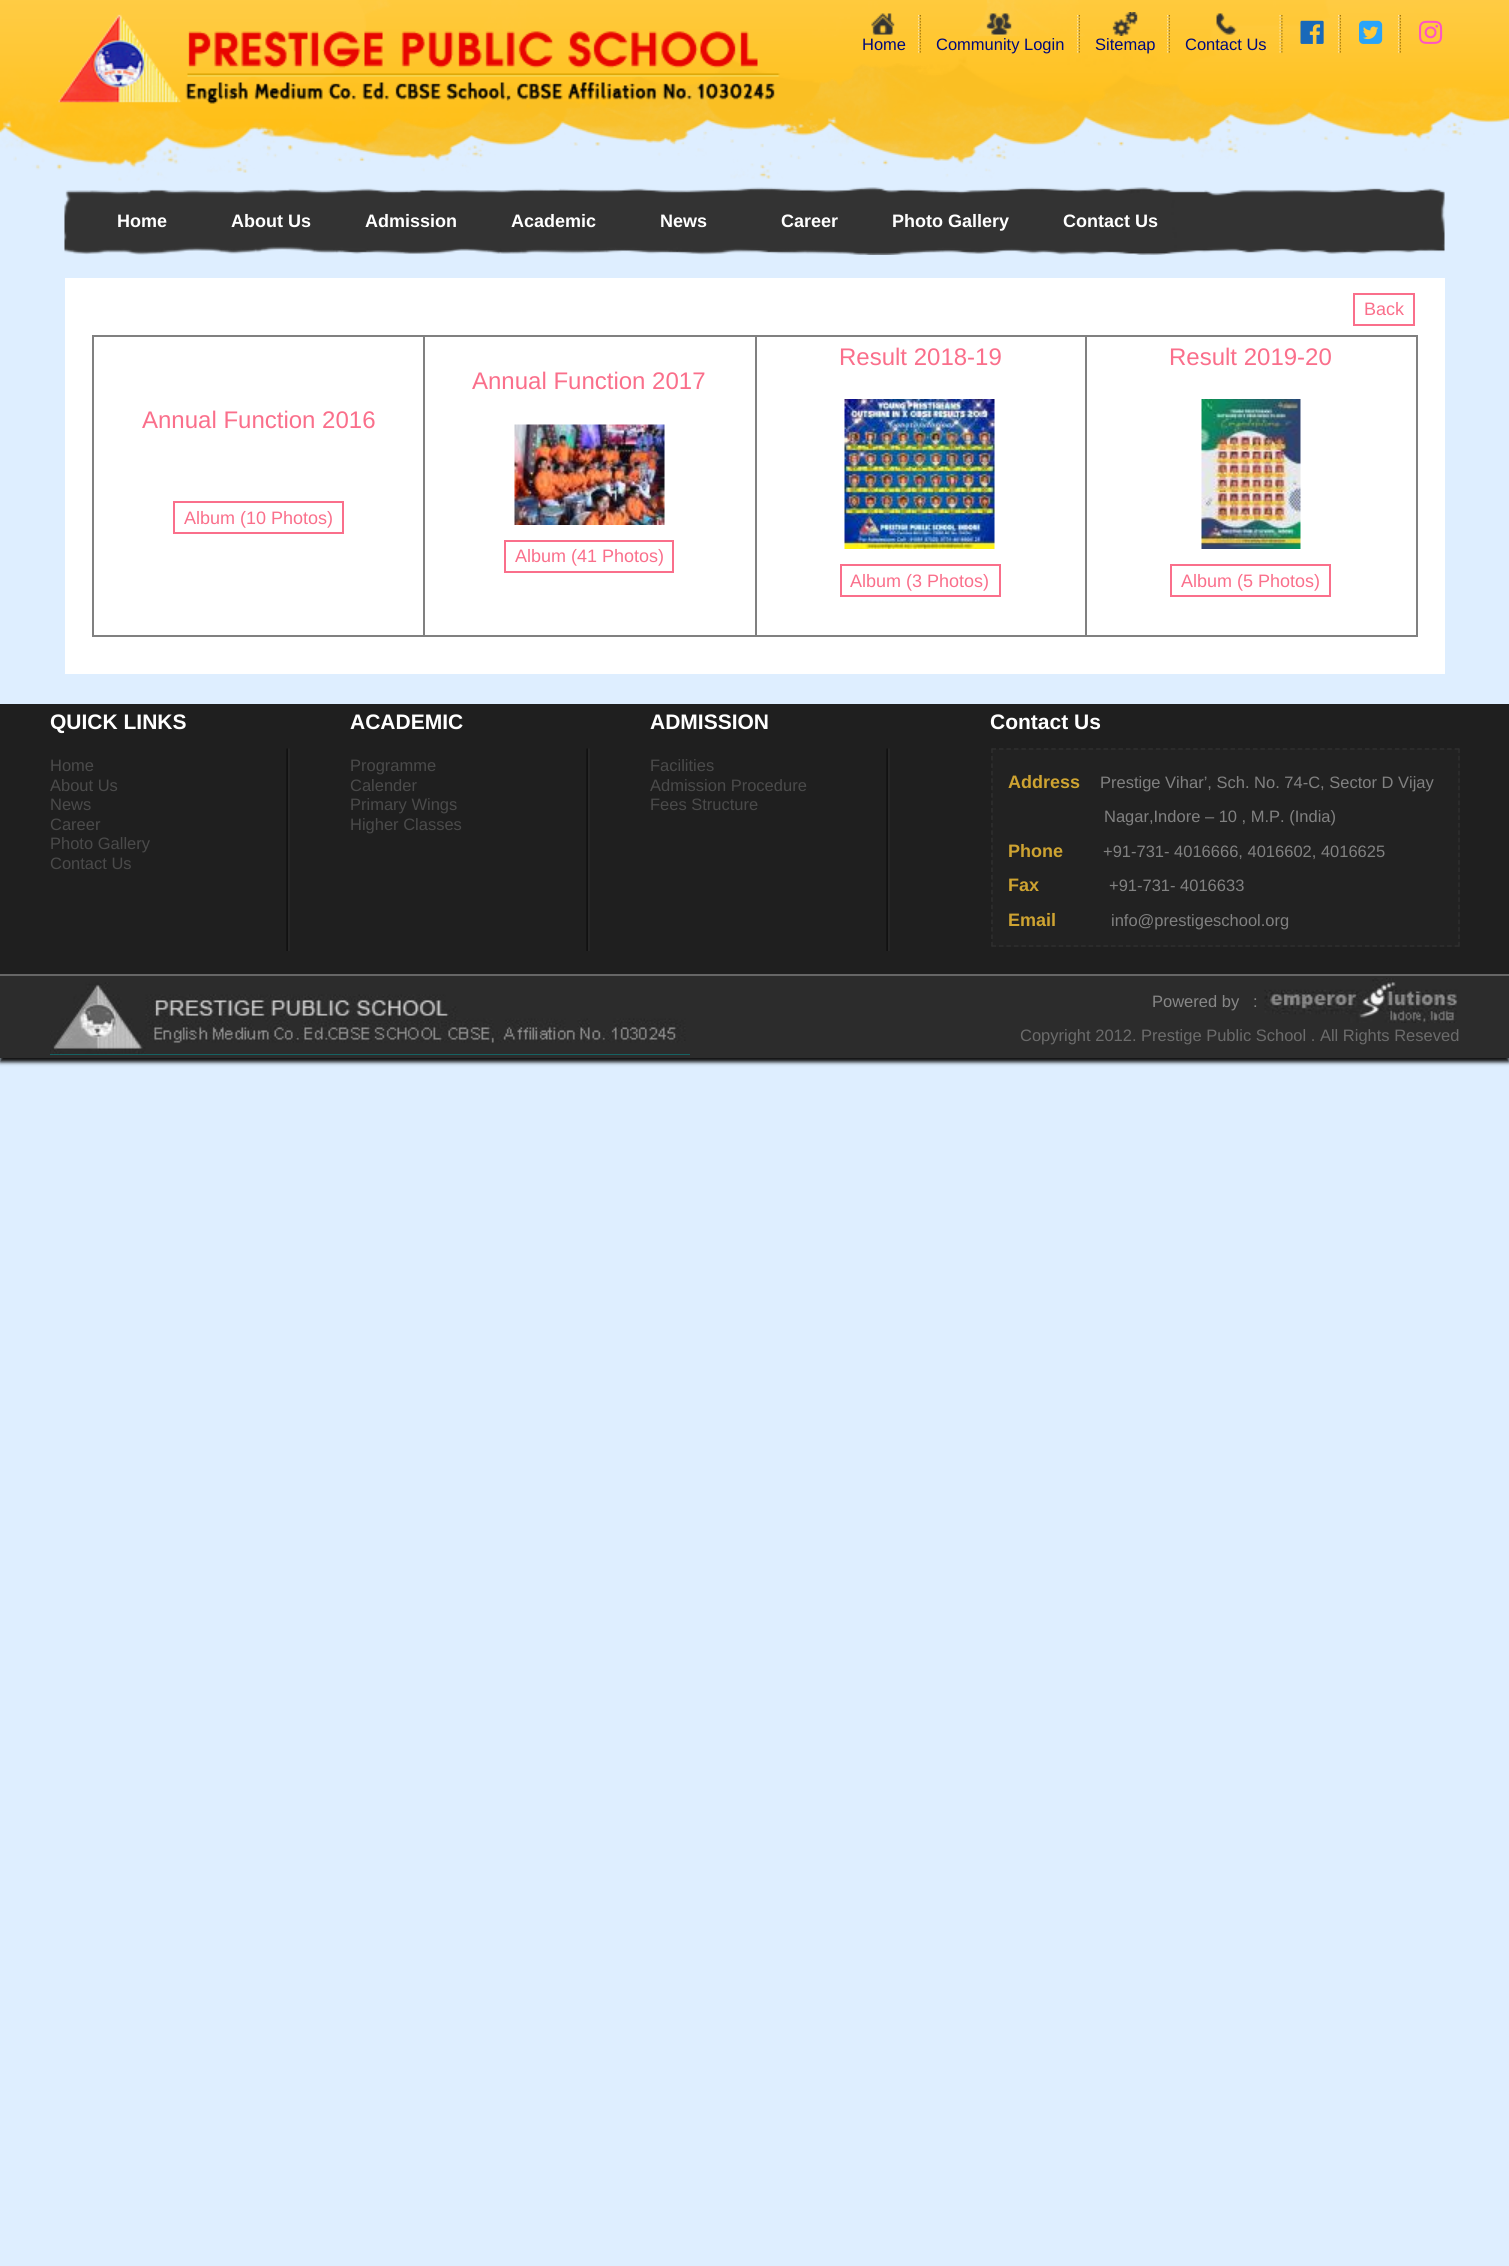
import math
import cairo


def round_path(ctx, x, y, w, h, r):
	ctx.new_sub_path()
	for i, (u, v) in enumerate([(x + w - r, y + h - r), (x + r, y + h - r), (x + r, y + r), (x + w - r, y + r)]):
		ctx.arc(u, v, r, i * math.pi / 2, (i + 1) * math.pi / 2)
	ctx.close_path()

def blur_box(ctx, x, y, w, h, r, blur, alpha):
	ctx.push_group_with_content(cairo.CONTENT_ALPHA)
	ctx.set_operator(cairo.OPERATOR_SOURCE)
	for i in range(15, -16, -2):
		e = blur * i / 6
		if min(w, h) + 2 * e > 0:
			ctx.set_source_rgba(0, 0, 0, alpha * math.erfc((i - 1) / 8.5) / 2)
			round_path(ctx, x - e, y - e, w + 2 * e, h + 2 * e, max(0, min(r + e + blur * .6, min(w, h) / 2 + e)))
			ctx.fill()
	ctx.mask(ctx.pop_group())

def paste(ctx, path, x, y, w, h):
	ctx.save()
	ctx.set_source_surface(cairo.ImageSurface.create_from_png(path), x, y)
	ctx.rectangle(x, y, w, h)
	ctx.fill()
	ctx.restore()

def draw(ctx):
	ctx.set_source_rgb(0.871, 0.933, 1)
	ctx.paint()
	paste(ctx, 'media/1.png', 0, 0, 1509, 181)
	paste(ctx, 'media/2.png', 58, 14, 722, 90)
	paste(ctx, 'media/3.png', 918, 15, 3, 38)
	paste(ctx, 'media/4.png', 871, 13, 24, 22)
	ctx.select_font_face('Liberation Sans')
	ctx.set_font_size(16.5)
	ctx.set_source_rgb(0, 0.039, 0.478)
	ctx.move_to(862, 50)
	ctx.show_text('Home')
	paste(ctx, 'media/5.png', 1077, 15, 3, 38)
	paste(ctx, 'media/6.png', 986, 13, 26, 22)
	ctx.move_to(936, 50)
	ctx.show_text('Community Login')
	paste(ctx, 'media/7.png', 1167, 15, 3, 38)
	paste(ctx, 'media/8.png', 1112, 12, 26, 24)
	ctx.move_to(1095, 50)
	ctx.show_text('Sitemap')
	paste(ctx, 'media/9.png', 1279, 15, 4, 38)
	paste(ctx, 'media/10.png', 1216, 13, 21, 22)
	ctx.move_to(1185, 50)
	ctx.show_text('Contact Us')
	paste(ctx, 'media/11.png', 1338, 15, 3, 38)
	paste(ctx, 'media/12.png', 1300, 20, 24, 24)
	paste(ctx, 'media/13.png', 1398, 15, 3, 38)
	paste(ctx, 'media/14.png', 1359, 20, 24, 24)
	paste(ctx, 'media/15.png', 1419, 20, 24, 24)
	paste(ctx, 'media/16.png', 64, 187, 1381, 68)
	ctx.select_font_face('Liberation Sans', cairo.FONT_SLANT_NORMAL, cairo.FONT_WEIGHT_BOLD)
	ctx.set_font_size(18)
	ctx.set_source_rgb(1, 1, 1)
	for x, y, s in [
		(117, 227, 'Home'),
		(231, 227, 'About Us'),
		(365, 227, 'Admission'),
		(511, 227, 'Academic'),
		(660, 227, 'News'),
		(781, 227, 'Career'),
		(892, 227, 'Photo Gallery'),
		(1063, 227, 'Contact Us'),
	]:
		ctx.move_to(x, y)
		ctx.show_text(s)
	ctx.rectangle(65, 278, 1380, 396)
	ctx.fill()
	ctx.rectangle(1354, 294, 60, 31)
	ctx.set_source_rgb(0.98, 0.435, 0.545)
	ctx.stroke()
	ctx.select_font_face('Liberation Sans')
	ctx.move_to(1364, 315)
	ctx.show_text('Back')
	ctx.set_source_rgb(0.502, 0.502, 0.502)
	ctx.rectangle(92, 335, 1326, 2)
	ctx.rectangle(1416, 335, 2, 301)
	ctx.rectangle(92, 635, 1326, 2)
	ctx.rectangle(92, 335, 2, 301)
	ctx.fill()
	ctx.set_font_size(24)
	ctx.set_source_rgb(0.98, 0.435, 0.545)
	ctx.move_to(142, 428)
	ctx.show_text('Annual Function 2016')
	ctx.rectangle(174, 502, 169, 31)
	ctx.stroke()
	ctx.set_font_size(18)
	ctx.move_to(184, 524)
	ctx.show_text('Album (10 Photos)')
	ctx.set_source_rgb(0.502, 0.502, 0.502)
	ctx.rectangle(423, 335, 2, 301)
	ctx.fill()
	ctx.set_font_size(24)
	ctx.set_source_rgb(0.98, 0.435, 0.545)
	ctx.move_to(472, 389)
	ctx.show_text('Annual Function 2017')
	paste(ctx, 'media/17.png', 514, 424, 151, 101)
	ctx.rectangle(505, 541, 168, 31)
	ctx.stroke()
	ctx.set_font_size(18)
	ctx.move_to(515, 562)
	ctx.show_text('Album (41 Photos)')
	ctx.set_source_rgb(0.502, 0.502, 0.502)
	ctx.rectangle(755, 335, 2, 301)
	ctx.fill()
	ctx.set_font_size(24)
	ctx.set_source_rgb(0.98, 0.435, 0.545)
	ctx.move_to(839, 365)
	ctx.show_text('Result 2018-19')
	paste(ctx, 'media/18.png', 844, 399, 151, 150)
	ctx.rectangle(841, 565, 159, 31)
	ctx.stroke()
	ctx.set_font_size(18)
	ctx.move_to(850, 587)
	ctx.show_text('Album (3 Photos)')
	ctx.set_source_rgb(0.502, 0.502, 0.502)
	ctx.rectangle(1085, 335, 2, 301)
	ctx.fill()
	ctx.set_font_size(24)
	ctx.set_source_rgb(0.98, 0.435, 0.545)
	ctx.move_to(1169, 365)
	ctx.show_text('Result 2019-20')
	paste(ctx, 'media/19.png', 1201, 399, 100, 150)
	ctx.rectangle(1171, 565, 159, 31)
	ctx.stroke()
	ctx.set_font_size(18)
	ctx.move_to(1181, 587)
	ctx.show_text('Album (5 Photos)')
	ctx.set_source_rgb(0.122, 0.122, 0.122)
	ctx.rectangle(0, 704, 1509, 270)
	ctx.fill()
	ctx.select_font_face('Liberation Sans', cairo.FONT_SLANT_NORMAL, cairo.FONT_WEIGHT_BOLD)
	ctx.set_font_size(21)
	ctx.set_source_rgb(1, 1, 1)
	ctx.move_to(50, 729)
	ctx.show_text('QUICK LINKS')
	paste(ctx, 'media/20.png', 286, 748, 4, 203)
	ctx.select_font_face('Liberation Sans')
	ctx.set_font_size(16.5)
	ctx.set_source_rgb(0.29, 0.29, 0.29)
	for x, y, s in [
		(50, 771, 'Home'),
		(50, 791, 'About Us'),
		(50, 810, 'News'),
		(50, 830, 'Career'),
		(50, 849, 'Photo Gallery'),
		(50, 869, 'Contact Us'),
	]:
		ctx.move_to(x, y)
		ctx.show_text(s)
	ctx.select_font_face('Liberation Sans', cairo.FONT_SLANT_NORMAL, cairo.FONT_WEIGHT_BOLD)
	ctx.set_font_size(21)
	ctx.set_source_rgb(1, 1, 1)
	ctx.move_to(350, 729)
	ctx.show_text('ACADEMIC')
	paste(ctx, 'media/20.png', 586, 748, 4, 203)
	ctx.select_font_face('Liberation Sans')
	ctx.set_font_size(16.5)
	ctx.set_source_rgb(0.29, 0.29, 0.29)
	for x, y, s in [
		(350, 771, 'Programme'),
		(350, 791, 'Calender'),
		(350, 810, 'Primary Wings'),
		(350, 830, 'Higher Classes'),
	]:
		ctx.move_to(x, y)
		ctx.show_text(s)
	ctx.select_font_face('Liberation Sans', cairo.FONT_SLANT_NORMAL, cairo.FONT_WEIGHT_BOLD)
	ctx.set_font_size(21)
	ctx.set_source_rgb(1, 1, 1)
	ctx.move_to(650, 729)
	ctx.show_text('ADMISSION')
	paste(ctx, 'media/20.png', 886, 748, 4, 203)
	ctx.select_font_face('Liberation Sans')
	ctx.set_font_size(16.5)
	ctx.set_source_rgb(0.29, 0.29, 0.29)
	for x, y, s in [
		(650, 771, 'Facilities'),
		(650, 791, 'Admission Procedure'),
		(650, 810, 'Fees Structure'),
	]:
		ctx.move_to(x, y)
		ctx.show_text(s)
	ctx.select_font_face('Liberation Sans', cairo.FONT_SLANT_NORMAL, cairo.FONT_WEIGHT_BOLD)
	ctx.set_font_size(21)
	ctx.set_source_rgb(1, 1, 1)
	ctx.move_to(990, 729)
	ctx.show_text('Contact Us')
	ctx.set_source_rgb(0.133, 0.133, 0.133)
	ctx.rectangle(992, 749, 468, 198)
	ctx.fill()
	ctx.new_path()
	ctx.move_to(991.5, 749)
	ctx.line_to(1459.5, 749)
	ctx.set_source_rgb(0.18, 0.18, 0.18)
	ctx.set_line_width(1.5)
	ctx.set_dash([4.5, 2.97])
	ctx.stroke()
	ctx.new_path()
	ctx.move_to(1459, 748.5)
	ctx.line_to(1459, 946.5)
	ctx.set_dash([4.5, 2.94])
	ctx.stroke()
	ctx.new_path()
	ctx.move_to(991.5, 946)
	ctx.line_to(1459.5, 946)
	ctx.set_dash([4.5, 2.97])
	ctx.stroke()
	ctx.new_path()
	ctx.move_to(992, 748.5)
	ctx.line_to(992, 946.5)
	ctx.set_dash([4.5, 2.94])
	ctx.stroke()
	ctx.set_font_size(18)
	ctx.set_source_rgb(0.808, 0.639, 0.192)
	ctx.move_to(1008, 788)
	ctx.show_text('Address')
	ctx.select_font_face('Liberation Sans')
	ctx.set_font_size(16.5)
	ctx.set_source_rgb(0.506, 0.506, 0.506)
	ctx.move_to(1100, 788)
	ctx.show_text('Prestige Vihar’, Sch. No. 74-C, Sector D Vijay')
	ctx.move_to(1104, 822)
	ctx.show_text('Nagar,Indore – 10 , M.P. (India)')
	ctx.select_font_face('Liberation Sans', cairo.FONT_SLANT_NORMAL, cairo.FONT_WEIGHT_BOLD)
	ctx.set_font_size(18)
	ctx.set_source_rgb(0.808, 0.639, 0.192)
	ctx.move_to(1008, 857)
	ctx.show_text('Phone')
	ctx.select_font_face('Liberation Sans')
	ctx.set_font_size(16.5)
	ctx.set_source_rgb(0.506, 0.506, 0.506)
	ctx.move_to(1103, 857)
	ctx.show_text('+91-731- 4016666, 4016602, 4016625')
	ctx.select_font_face('Liberation Sans', cairo.FONT_SLANT_NORMAL, cairo.FONT_WEIGHT_BOLD)
	ctx.set_font_size(18)
	ctx.set_source_rgb(0.808, 0.639, 0.192)
	ctx.move_to(1008, 891)
	ctx.show_text('Fax')
	ctx.select_font_face('Liberation Sans')
	ctx.set_font_size(16.5)
	ctx.set_source_rgb(0.506, 0.506, 0.506)
	ctx.move_to(1109, 891)
	ctx.show_text('+91-731- 4016633')
	ctx.select_font_face('Liberation Sans', cairo.FONT_SLANT_NORMAL, cairo.FONT_WEIGHT_BOLD)
	ctx.set_font_size(18)
	ctx.set_source_rgb(0.808, 0.639, 0.192)
	ctx.move_to(1008, 926)
	ctx.show_text('Email')
	ctx.select_font_face('Liberation Sans')
	ctx.set_font_size(16.5)
	ctx.set_source_rgb(0.506, 0.506, 0.506)
	ctx.move_to(1111, 926)
	ctx.show_text('info@prestigeschool.org')
	ctx.set_source_rgb(0.055, 0.055, 0.055)
	blur_box(ctx, 0, 978, 1509, 84, 0, 2, 1)
	ctx.set_source_rgb(0.173, 0.173, 0.173)
	ctx.rectangle(0, 976, 1509, 82)
	ctx.fill()
	ctx.set_source_rgb(0.4, 0.4, 0.4)
	ctx.rectangle(0, 974, 1509, 2)
	ctx.fill()
	ctx.set_source_rgb(0, 0.6, 0.6)
	ctx.rectangle(50, 1054, 640, 1)
	ctx.fill()
	paste(ctx, 'media/21.png', 50, 982, 640, 73)
	ctx.set_source_rgb(0.529, 0.529, 0.529)
	ctx.move_to(1152, 1007)
	ctx.show_text('Powered by   :')
	paste(ctx, 'media/22.png', 1264, 978, 194, 45)
	ctx.set_source_rgb(0.42, 0.42, 0.42)
	ctx.move_to(1020, 1041)
	ctx.show_text('Copyright 2012. Prestige Public School . All Rights Reseved')


surface = cairo.ImageSurface(cairo.FORMAT_RGB24, 1509, 2266)
ctx = cairo.Context(surface)
options = cairo.FontOptions()
options.set_hint_metrics(cairo.HINT_METRICS_OFF)
options.set_hint_style(cairo.HINT_STYLE_NONE)
ctx.set_font_options(options)
ctx.set_miter_limit(4)
draw(ctx)
surface.write_to_png('image.png')
